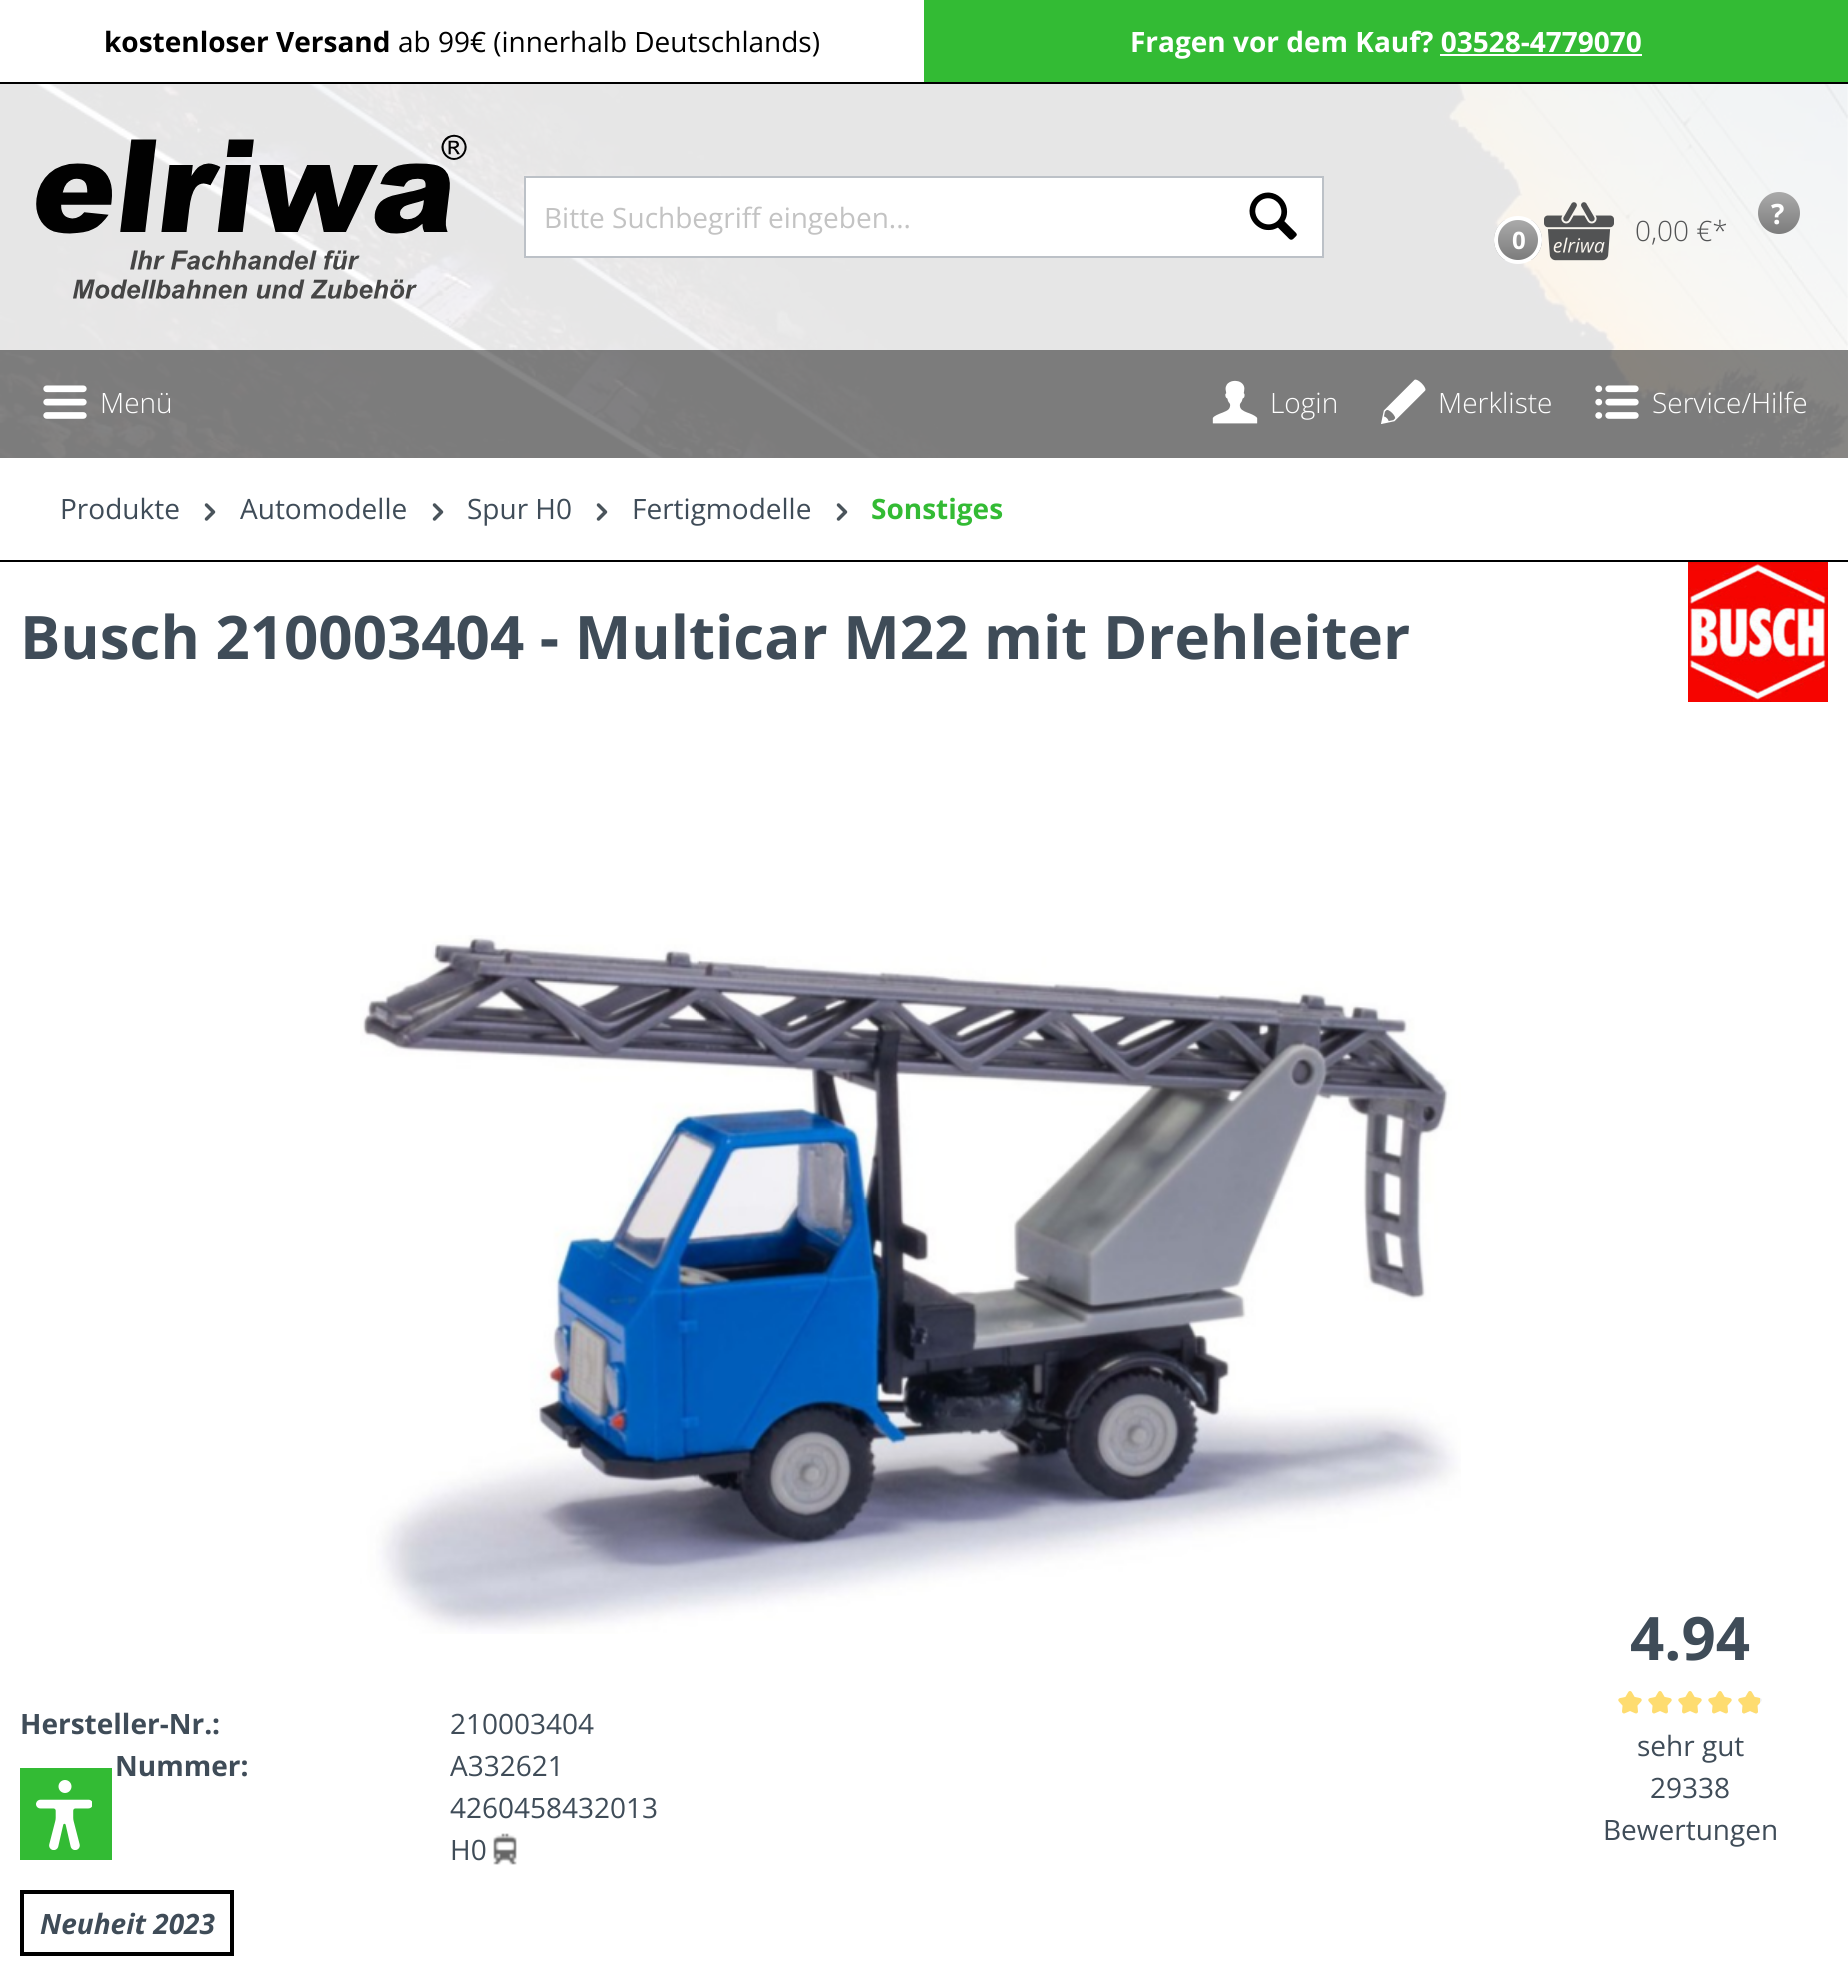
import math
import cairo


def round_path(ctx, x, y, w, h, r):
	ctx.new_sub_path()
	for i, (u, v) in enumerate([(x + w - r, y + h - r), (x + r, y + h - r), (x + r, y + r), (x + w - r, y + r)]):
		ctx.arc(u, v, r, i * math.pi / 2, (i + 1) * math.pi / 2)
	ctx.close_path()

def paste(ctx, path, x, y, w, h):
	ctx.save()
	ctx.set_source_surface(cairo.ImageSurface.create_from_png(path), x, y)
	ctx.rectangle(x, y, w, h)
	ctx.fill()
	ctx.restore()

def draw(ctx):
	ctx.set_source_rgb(1, 1, 1)
	ctx.paint()
	paste(ctx, 'media/1.png', 0, 84, 1848, 374)
	ctx.set_source_rgb(0, 0, 0)
	ctx.rectangle(0, 82, 1848, 2)
	ctx.fill()
	ctx.select_font_face('Open Sans', cairo.FONT_SLANT_NORMAL, cairo.FONT_WEIGHT_BOLD)
	ctx.set_font_size(28)
	ctx.move_to(104, 52)
	ctx.show_text('kostenloser Versand')
	ctx.select_font_face('Open Sans')
	ctx.move_to(398, 52)
	ctx.show_text('ab 99€ (innerhalb Deutschlands)')
	ctx.set_source_rgb(0.2, 0.733, 0.204)
	ctx.rectangle(924, 0, 924, 82)
	ctx.fill()
	ctx.select_font_face('Open Sans', cairo.FONT_SLANT_NORMAL, cairo.FONT_WEIGHT_BOLD)
	ctx.set_source_rgb(1, 1, 1)
	ctx.move_to(1130, 52)
	ctx.show_text('Fragen vor dem Kauf? 03528-4779070')
	ctx.rectangle(1440, 54, 202, 2)
	ctx.fill()
	ctx.set_source_rgba(1, 1, 1, 0.9)
	ctx.rectangle(0, 84, 1848, 374)
	ctx.fill()
	paste(ctx, 'media/2.png', 36, 134, 431, 165)
	ctx.set_source_rgb(1, 1, 1)
	ctx.rectangle(526, 178, 796, 78)
	ctx.fill()
	ctx.set_source_rgb(0.737, 0.757, 0.78)
	ctx.rectangle(524, 176, 800, 2)
	ctx.rectangle(524, 256, 702, 2)
	ctx.rectangle(524, 176, 2, 82)
	ctx.fill()
	ctx.select_font_face('Open Sans')
	ctx.set_source_rgb(0.765, 0.765, 0.765)
	ctx.move_to(544, 228)
	ctx.show_text('Bitte Suchbegriff eingeben...')
	ctx.set_source_rgb(0.737, 0.757, 0.78)
	ctx.rectangle(1322, 176, 2, 82)
	ctx.fill()
	ctx.rectangle(1224, 256, 100, 2)
	ctx.fill()
	paste(ctx, 'media/3.png', 1249, 192, 48, 48)
	gradient = cairo.LinearGradient(1779, 192, 1779, 234)
	gradient.add_color_stop_rgba(0, 0.667, 0.667, 0.667, 1)
	gradient.add_color_stop_rgba(1, 0.486, 0.486, 0.486, 1)
	ctx.set_source(gradient)
	ctx.arc(1779, 213, 21, 0, 2 * math.pi)
	ctx.fill()
	ctx.select_font_face('Open Sans', cairo.FONT_SLANT_NORMAL, cairo.FONT_WEIGHT_BOLD)
	ctx.set_source_rgb(1, 1, 1)
	ctx.move_to(1771, 224)
	ctx.show_text('?')
	ctx.save()
	round_path(ctx, 1494, 216, 48, 48, 24)
	ctx.clip()
	gradient = cairo.LinearGradient(1518, 220, 1518, 260)
	gradient.add_color_stop_rgba(0, 0.667, 0.667, 0.667, 1)
	gradient.add_color_stop_rgba(1, 0.486, 0.486, 0.486, 1)
	ctx.set_source(gradient)
	ctx.rectangle(1494, 220, 48, 40)
	ctx.fill()
	ctx.restore()
	ctx.arc(1518, 240, 22, 0, 2 * math.pi)
	ctx.set_line_width(4)
	ctx.stroke()
	ctx.set_font_size(24)
	ctx.move_to(1512, 249)
	ctx.show_text('0')
	paste(ctx, 'media/4.png', 1544, 202, 70, 59)
	ctx.select_font_face('Open Sans Light')
	ctx.set_font_size(28)
	ctx.set_source_rgb(0.322, 0.325, 0.329)
	ctx.move_to(1635, 241)
	ctx.show_text('0,00 €*')
	ctx.set_source_rgba(0.078, 0.078, 0.078, 0.5)
	ctx.rectangle(0, 350, 1848, 108)
	ctx.fill()
	paste(ctx, 'media/5.png', 43, 385, 44, 34)
	ctx.set_source_rgb(1, 1, 1)
	ctx.move_to(100, 413)
	ctx.show_text('Menü')
	paste(ctx, 'media/6.png', 1212, 380, 46, 44)
	ctx.move_to(1270, 413)
	ctx.show_text('Login')
	paste(ctx, 'media/7.png', 1381, 379, 45, 45)
	ctx.move_to(1438, 413)
	ctx.show_text('Merkliste')
	paste(ctx, 'media/8.png', 1595, 385, 44, 34)
	ctx.move_to(1652, 413)
	ctx.show_text('Service/Hilfe')
	ctx.set_source_rgb(0, 0, 0)
	ctx.rectangle(0, 560, 1848, 2)
	ctx.fill()
	ctx.select_font_face('Open Sans')
	ctx.set_source_rgb(0.247, 0.298, 0.345)
	ctx.move_to(60, 519)
	ctx.show_text('Produkte')
	paste(ctx, 'media/9.png', 204, 503, 12, 18)
	ctx.move_to(240, 519)
	ctx.show_text('Automodelle')
	paste(ctx, 'media/9.png', 432, 503, 12, 18)
	ctx.move_to(467, 519)
	ctx.show_text('Spur H0')
	paste(ctx, 'media/9.png', 596, 503, 12, 18)
	ctx.move_to(632, 519)
	ctx.show_text('Fertigmodelle')
	paste(ctx, 'media/9.png', 836, 503, 12, 18)
	ctx.select_font_face('Open Sans', cairo.FONT_SLANT_NORMAL, cairo.FONT_WEIGHT_BOLD)
	ctx.set_source_rgb(0.2, 0.733, 0.204)
	ctx.move_to(871, 519)
	ctx.show_text('Sonstiges')
	ctx.set_font_size(60)
	ctx.set_source_rgb(0.247, 0.298, 0.345)
	ctx.move_to(20, 659)
	ctx.show_text('Busch 210003404 - Multicar M22 mit Drehleiter')
	paste(ctx, 'media/10.png', 1688, 562, 140, 140)
	paste(ctx, 'media/11.png', 360, 935, 1101, 699)
	ctx.set_font_size(28)
	ctx.move_to(20, 1734)
	ctx.show_text('Hersteller-Nr.:')
	ctx.select_font_face('Open Sans')
	ctx.move_to(450, 1734)
	ctx.show_text('210003404')
	ctx.select_font_face('Open Sans', cairo.FONT_SLANT_NORMAL, cairo.FONT_WEIGHT_BOLD)
	ctx.move_to(115, 1776)
	ctx.show_text('Nummer:')
	ctx.select_font_face('Open Sans')
	for x, y, s in [
		(450, 1776, 'A332621'),
		(450, 1818, '4260458432013'),
		(450, 1860, 'H0'),
	]:
		ctx.move_to(x, y)
		ctx.show_text(s)
	paste(ctx, 'media/12.png', 493, 1833, 24, 32)
	ctx.rectangle(22, 1892, 210, 62)
	ctx.set_source_rgb(0, 0, 0)
	ctx.stroke()
	ctx.select_font_face('Open Sans', cairo.FONT_SLANT_ITALIC, cairo.FONT_WEIGHT_BOLD)
	ctx.set_source_rgb(0.247, 0.298, 0.345)
	ctx.move_to(40, 1934)
	ctx.show_text('Neuheit 2023')
	ctx.select_font_face('Open Sans', cairo.FONT_SLANT_NORMAL, cairo.FONT_WEIGHT_BOLD)
	ctx.set_font_size(60)
	ctx.move_to(1630, 1660)
	ctx.show_text('4.94')
	paste(ctx, 'media/13.png', 1618, 1691, 24, 23)
	paste(ctx, 'media/13.png', 1648, 1691, 24, 23)
	paste(ctx, 'media/13.png', 1678, 1691, 24, 23)
	paste(ctx, 'media/13.png', 1708, 1691, 24, 23)
	paste(ctx, 'media/14.png', 1738, 1691, 24, 23)
	paste(ctx, 'media/15.png', 1738, 1691, 22, 23)
	ctx.select_font_face('Open Sans')
	ctx.set_font_size(28)
	for x, y, s in [
		(1637, 1756, 'sehr gut'),
		(1650, 1798, '29338'),
		(1603, 1840, 'Bewertungen'),
	]:
		ctx.move_to(x, y)
		ctx.show_text(s)
	ctx.set_source_rgb(0.2, 0.733, 0.204)
	ctx.rectangle(20, 1768, 92, 92)
	ctx.fill()
	paste(ctx, 'media/16.png', 36, 1780, 56, 70)


surface = cairo.ImageSurface(cairo.FORMAT_RGB24, 1848, 1979)
ctx = cairo.Context(surface)
options = cairo.FontOptions()
options.set_hint_metrics(cairo.HINT_METRICS_OFF)
options.set_hint_style(cairo.HINT_STYLE_NONE)
ctx.set_font_options(options)
ctx.set_miter_limit(4)
draw(ctx)
surface.write_to_png('image.png')
